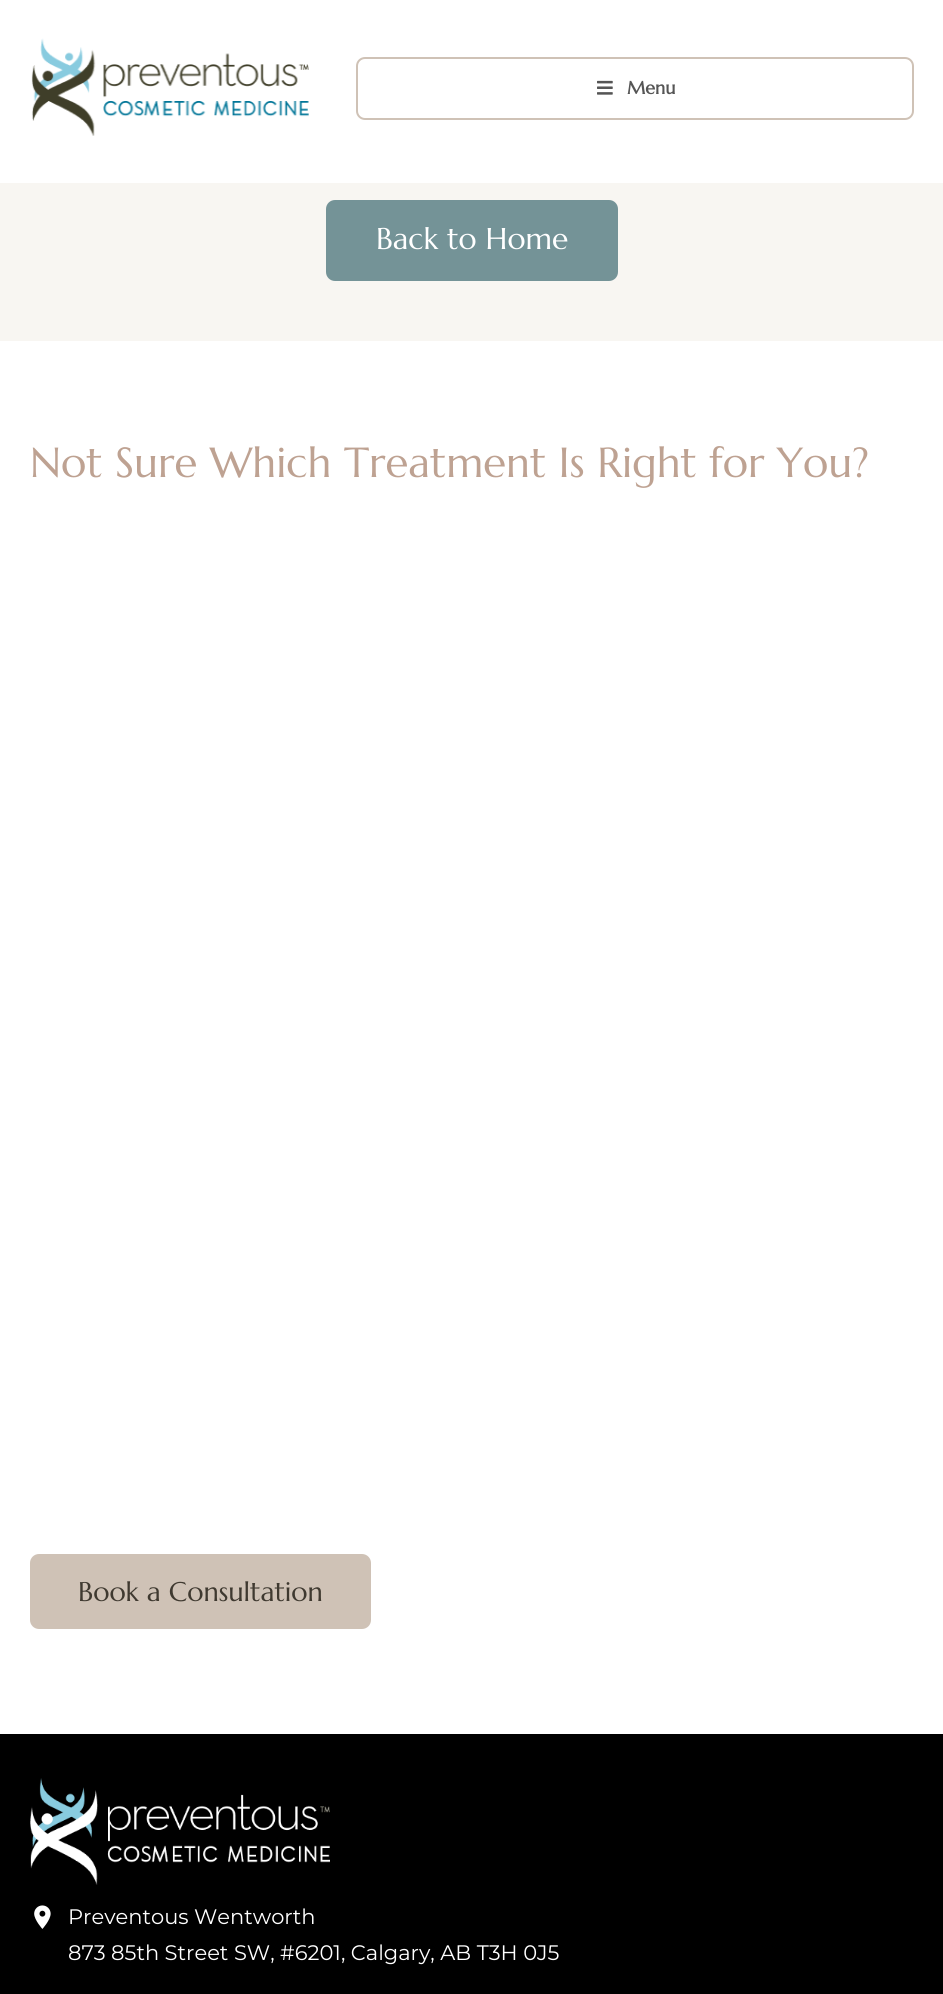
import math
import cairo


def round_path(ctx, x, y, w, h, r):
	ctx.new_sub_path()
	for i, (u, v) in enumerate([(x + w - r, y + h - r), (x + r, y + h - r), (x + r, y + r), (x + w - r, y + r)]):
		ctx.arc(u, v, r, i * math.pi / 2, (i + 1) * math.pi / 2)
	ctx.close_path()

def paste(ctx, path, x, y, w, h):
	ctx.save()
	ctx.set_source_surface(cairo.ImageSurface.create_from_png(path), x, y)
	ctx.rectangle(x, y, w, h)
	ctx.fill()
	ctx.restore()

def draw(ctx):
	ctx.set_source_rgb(1, 1, 1)
	ctx.paint()
	paste(ctx, 'media/1.png', 31, 38, 278, 98)
	round_path(ctx, 357, 58, 556, 61, 8)
	ctx.set_source_rgb(0.812, 0.761, 0.714)
	ctx.stroke()
	paste(ctx, 'media/2.png', 597, 80, 16, 15)
	ctx.select_font_face('Marcellus', cairo.FONT_SLANT_NORMAL, cairo.FONT_WEIGHT_BOLD)
	ctx.set_font_size(18)
	ctx.set_source_rgb(0.333, 0.333, 0.333)
	ctx.move_to(627, 94)
	ctx.show_text('Menu')
	ctx.set_source_rgb(0.969, 0.961, 0.949)
	ctx.rectangle(0, 183, 943, 158)
	ctx.fill()
	ctx.set_source_rgb(0.455, 0.576, 0.592)
	round_path(ctx, 327, 201, 290, 79, 8)
	ctx.fill_preserve()
	ctx.stroke()
	ctx.select_font_face('Marcellus')
	ctx.set_font_size(30)
	ctx.set_source_rgb(1, 1, 1)
	ctx.move_to(376, 249)
	ctx.show_text('Back to Home')
	ctx.set_font_size(42)
	ctx.set_source_rgb(0.745, 0.635, 0.573)
	ctx.move_to(30, 477)
	ctx.show_text('Not Sure Which Treatment Is Right for You?')
	ctx.set_source_rgb(0.812, 0.761, 0.714)
	round_path(ctx, 30, 1554, 341, 75, 9)
	ctx.fill()
	ctx.set_font_size(27)
	ctx.set_source_rgb(0.247, 0.224, 0.188)
	ctx.move_to(78, 1601)
	ctx.show_text('Book a Consultation')
	ctx.set_source_rgb(0, 0, 0)
	ctx.rectangle(0, 1734, 943, 260)
	ctx.fill()
	paste(ctx, 'media/3.png', 30, 1778, 300, 107)
	paste(ctx, 'media/4.png', 34, 1905, 17, 24)
	ctx.select_font_face('Montserrat')
	ctx.set_font_size(21)
	ctx.set_source_rgb(1, 1, 1)
	ctx.move_to(68, 1924)
	ctx.show_text('Preventous Wentworth')
	ctx.move_to(68, 1960)
	ctx.show_text('873 85th Street SW, #6201, Calgary, AB T3H 0J5')


surface = cairo.ImageSurface(cairo.FORMAT_RGB24, 943, 1994)
ctx = cairo.Context(surface)
options = cairo.FontOptions()
options.set_hint_metrics(cairo.HINT_METRICS_OFF)
options.set_hint_style(cairo.HINT_STYLE_NONE)
ctx.set_font_options(options)
ctx.set_miter_limit(4)
draw(ctx)
surface.write_to_png('image.png')
